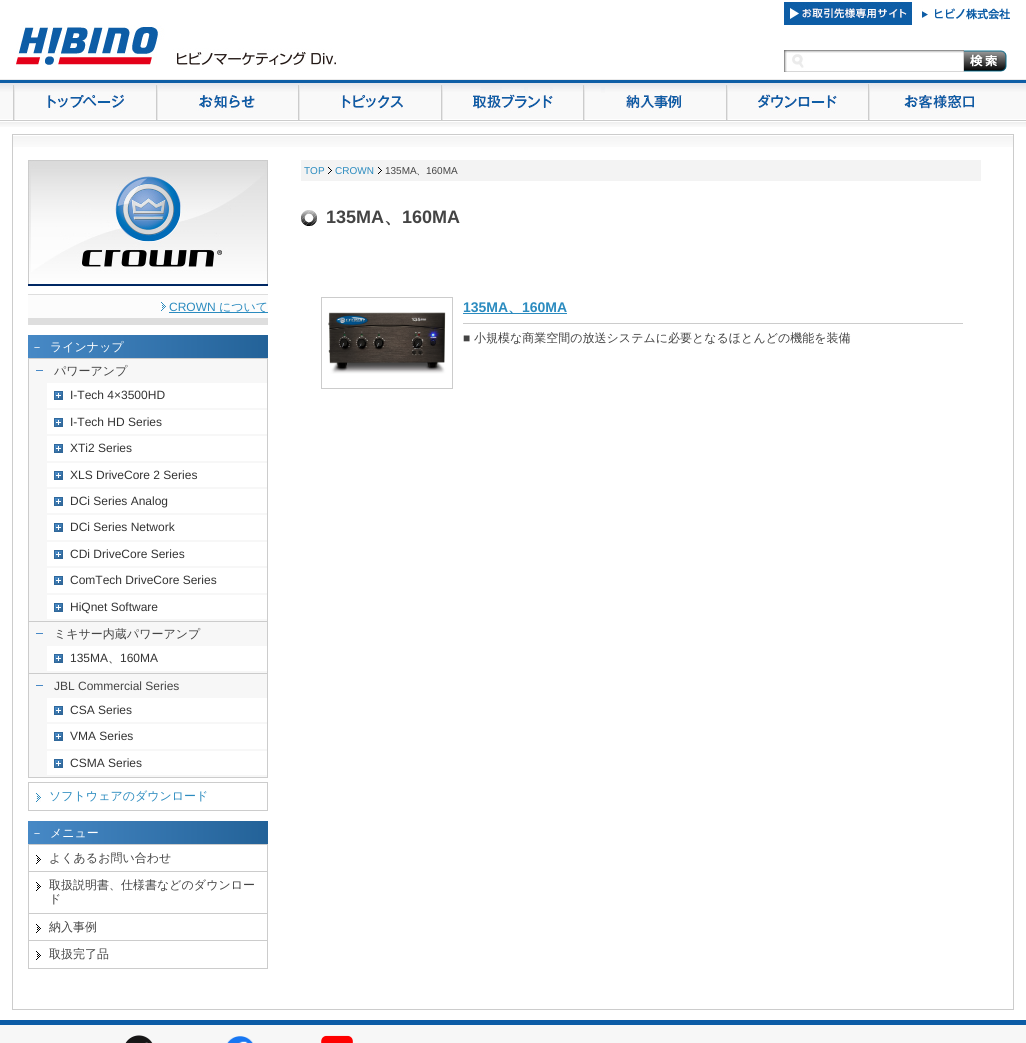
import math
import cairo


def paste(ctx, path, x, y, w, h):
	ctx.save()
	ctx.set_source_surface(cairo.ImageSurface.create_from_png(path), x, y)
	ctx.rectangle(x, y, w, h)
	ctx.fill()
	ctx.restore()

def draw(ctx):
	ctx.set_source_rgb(1, 1, 1)
	ctx.paint()
	paste(ctx, 'media/1.png', 16, 25, 320, 40)
	paste(ctx, 'media/2.png', 784, 2, 128, 23)
	paste(ctx, 'media/3.png', 922, 8, 88, 12)
	paste(ctx, 'media/4.png', 784, 50, 180, 22)
	paste(ctx, 'media/5.png', 964, 50, 43, 22)
	paste(ctx, 'media/6.png', 0, 79, 1026, 48)
	paste(ctx, 'media/7.png', 13, 85, 111, 35)
	paste(ctx, 'media/8.png', 156, 85, 99, 35)
	paste(ctx, 'media/9.png', 298, 85, 105, 35)
	paste(ctx, 'media/10.png', 441, 85, 112, 35)
	paste(ctx, 'media/11.png', 583, 85, 101, 35)
	paste(ctx, 'media/12.png', 726, 85, 111, 35)
	paste(ctx, 'media/13.png', 868, 84, 111, 36)
	paste(ctx, 'media/14.png', 13, 136, 1000, 11)
	ctx.rectangle(12.5, 134.5, 1001, 875)
	ctx.set_source_rgb(0.8, 0.8, 0.8)
	ctx.set_line_width(1)
	ctx.stroke()
	ctx.set_source_rgb(0.953, 0.953, 0.953)
	ctx.rectangle(301, 160, 680, 21)
	ctx.fill()
	ctx.select_font_face('Liberation Sans')
	ctx.set_font_size(10)
	ctx.set_source_rgb(0.169, 0.545, 0.749)
	ctx.move_to(304, 174)
	ctx.show_text('TOP')
	paste(ctx, 'media/15.png', 328, 167, 4, 7)
	ctx.move_to(335, 174)
	ctx.show_text('CROWN')
	paste(ctx, 'media/15.png', 378, 167, 4, 7)
	ctx.set_source_rgb(0.267, 0.267, 0.267)
	ctx.move_to(385, 174)
	ctx.show_text('135MA')
	ctx.select_font_face('WenQuanYi Zen Hei Medium')
	ctx.move_to(416, 174)
	ctx.show_text('、')
	ctx.select_font_face('Liberation Sans')
	ctx.move_to(426, 174)
	ctx.show_text('160MA')
	paste(ctx, 'media/16.png', 301, 210, 16, 16)
	ctx.select_font_face('Liberation Sans', cairo.FONT_SLANT_NORMAL, cairo.FONT_WEIGHT_BOLD)
	ctx.set_font_size(18)
	ctx.move_to(326, 223)
	ctx.show_text('135MA')
	ctx.select_font_face('WenQuanYi Zen Hei', cairo.FONT_SLANT_NORMAL, cairo.FONT_WEIGHT_BOLD)
	ctx.move_to(384, 223)
	ctx.show_text('、')
	ctx.select_font_face('Liberation Sans', cairo.FONT_SLANT_NORMAL, cairo.FONT_WEIGHT_BOLD)
	ctx.move_to(402, 223)
	ctx.show_text('160MA')
	ctx.rectangle(321.5, 297.5, 131, 91)
	ctx.set_source_rgb(0.8, 0.8, 0.8)
	ctx.stroke()
	paste(ctx, 'media/17.png', 328, 312, 118, 62)
	ctx.set_font_size(14)
	ctx.set_source_rgb(0.169, 0.545, 0.749)
	ctx.move_to(463, 312)
	ctx.show_text('135MA')
	ctx.rectangle(463, 313, 104, 1)
	ctx.fill()
	ctx.select_font_face('WenQuanYi Zen Hei', cairo.FONT_SLANT_NORMAL, cairo.FONT_WEIGHT_BOLD)
	ctx.move_to(508, 312)
	ctx.show_text('、')
	ctx.select_font_face('Liberation Sans', cairo.FONT_SLANT_NORMAL, cairo.FONT_WEIGHT_BOLD)
	ctx.move_to(522, 312)
	ctx.show_text('160MA')
	ctx.set_source_rgb(0.8, 0.8, 0.8)
	ctx.rectangle(463, 323, 500, 1)
	ctx.fill()
	ctx.select_font_face('Liberation Sans')
	ctx.set_font_size(12)
	ctx.set_source_rgb(0.267, 0.267, 0.267)
	ctx.move_to(463, 342)
	ctx.show_text('■')
	ctx.select_font_face('WenQuanYi Zen Hei Medium')
	ctx.move_to(474, 342)
	ctx.show_text('小規模な商業空間の放送システムに必要となるほとんどの機能を装備')
	paste(ctx, 'media/18.png', 28, 160, 240, 126)
	ctx.set_source_rgb(0.988, 0.988, 0.988)
	ctx.rectangle(28, 295, 240, 23)
	ctx.fill()
	ctx.set_source_rgb(0.871, 0.871, 0.871)
	ctx.rectangle(28, 294, 240, 1)
	ctx.rectangle(28, 318, 240, 7)
	ctx.fill()
	paste(ctx, 'media/19.png', 161, 302, 5, 9)
	ctx.select_font_face('Liberation Sans')
	ctx.set_source_rgb(0.169, 0.545, 0.749)
	ctx.move_to(169, 311)
	ctx.show_text('CROWN')
	ctx.rectangle(169, 312, 99, 1)
	ctx.fill()
	ctx.select_font_face('WenQuanYi Zen Hei Medium')
	ctx.move_to(219, 311)
	ctx.show_text('について')
	gradient = cairo.LinearGradient(28, 347, 268, 347)
	gradient.add_color_stop_rgba(0, 0.278, 0.537, 0.776, 1)
	gradient.add_color_stop_rgba(1, 0.137, 0.384, 0.596, 1)
	ctx.set_source(gradient)
	ctx.rectangle(28, 335, 240, 23)
	ctx.fill()
	ctx.set_source_rgb(1, 1, 1)
	ctx.move_to(31, 351)
	ctx.show_text('－')
	ctx.move_to(50, 351)
	ctx.show_text('ラインナップ')
	ctx.set_source_rgb(0.965, 0.965, 0.965)
	ctx.rectangle(29, 359, 238, 262)
	ctx.fill()
	ctx.set_source_rgb(0.282, 0.537, 0.776)
	ctx.rectangle(36, 370, 7, 1)
	ctx.fill()
	ctx.rectangle(28.5, 358.5, 239, 263)
	ctx.set_source_rgb(0.8, 0.8, 0.8)
	ctx.stroke()
	ctx.set_source_rgb(0.267, 0.267, 0.267)
	ctx.move_to(54, 375)
	ctx.show_text('パワーアンプ')
	ctx.set_source_rgb(1, 1, 1)
	ctx.rectangle(47, 383, 220, 25)
	ctx.fill()
	paste(ctx, 'media/20.png', 54, 391, 9, 9)
	ctx.select_font_face('Liberation Sans')
	ctx.set_source_rgb(0.2, 0.2, 0.2)
	ctx.move_to(70, 399)
	ctx.show_text('I-Tech 4×3500HD')
	ctx.set_source_rgb(1, 1, 1)
	ctx.rectangle(47, 410, 220, 24)
	ctx.fill()
	paste(ctx, 'media/20.png', 54, 418, 9, 9)
	ctx.set_source_rgb(0.2, 0.2, 0.2)
	ctx.move_to(70, 426)
	ctx.show_text('I-Tech HD Series')
	ctx.set_source_rgb(1, 1, 1)
	ctx.rectangle(47, 436, 220, 25)
	ctx.fill()
	paste(ctx, 'media/20.png', 54, 444, 9, 9)
	ctx.set_source_rgb(0.2, 0.2, 0.2)
	ctx.move_to(70, 452)
	ctx.show_text('XTi2 Series')
	ctx.set_source_rgb(1, 1, 1)
	ctx.rectangle(47, 463, 220, 24)
	ctx.fill()
	paste(ctx, 'media/20.png', 54, 471, 9, 9)
	ctx.set_source_rgb(0.2, 0.2, 0.2)
	ctx.move_to(70, 479)
	ctx.show_text('XLS DriveCore 2 Series')
	ctx.set_source_rgb(1, 1, 1)
	ctx.rectangle(47, 489, 220, 24)
	ctx.fill()
	paste(ctx, 'media/20.png', 54, 497, 9, 9)
	ctx.set_source_rgb(0.2, 0.2, 0.2)
	ctx.move_to(70, 505)
	ctx.show_text('DCi Series Analog')
	ctx.set_source_rgb(1, 1, 1)
	ctx.rectangle(47, 515, 220, 25)
	ctx.fill()
	paste(ctx, 'media/20.png', 54, 523, 9, 9)
	ctx.set_source_rgb(0.2, 0.2, 0.2)
	ctx.move_to(70, 531)
	ctx.show_text('DCi Series Network')
	ctx.set_source_rgb(1, 1, 1)
	ctx.rectangle(47, 542, 220, 24)
	ctx.fill()
	paste(ctx, 'media/20.png', 54, 550, 9, 9)
	ctx.set_source_rgb(0.2, 0.2, 0.2)
	ctx.move_to(70, 558)
	ctx.show_text('CDi DriveCore Series')
	ctx.set_source_rgb(1, 1, 1)
	ctx.rectangle(47, 568, 220, 25)
	ctx.fill()
	paste(ctx, 'media/20.png', 54, 576, 9, 9)
	ctx.set_source_rgb(0.2, 0.2, 0.2)
	ctx.move_to(70, 584)
	ctx.show_text('ComTech DriveCore Series')
	ctx.set_source_rgb(1, 1, 1)
	ctx.rectangle(47, 595, 220, 24)
	ctx.fill()
	paste(ctx, 'media/20.png', 54, 603, 9, 9)
	ctx.set_source_rgb(0.2, 0.2, 0.2)
	ctx.move_to(70, 611)
	ctx.show_text('HiQnet Software')
	ctx.set_source_rgb(0.965, 0.965, 0.965)
	ctx.rectangle(29, 622, 238, 51)
	ctx.fill()
	ctx.set_source_rgb(0.282, 0.537, 0.776)
	ctx.rectangle(36, 633, 7, 1)
	ctx.fill()
	ctx.rectangle(28.5, 621.5, 239, 52)
	ctx.set_source_rgb(0.8, 0.8, 0.8)
	ctx.stroke()
	ctx.select_font_face('WenQuanYi Zen Hei Medium')
	ctx.set_source_rgb(0.267, 0.267, 0.267)
	ctx.move_to(54, 638)
	ctx.show_text('ミキサー内蔵パワーアンプ')
	ctx.set_source_rgb(1, 1, 1)
	ctx.rectangle(47, 646, 220, 25)
	ctx.fill()
	paste(ctx, 'media/20.png', 54, 654, 9, 9)
	ctx.select_font_face('Liberation Sans')
	ctx.set_source_rgb(0.2, 0.2, 0.2)
	ctx.move_to(70, 662)
	ctx.show_text('135MA')
	ctx.select_font_face('WenQuanYi Zen Hei Medium')
	ctx.move_to(108, 662)
	ctx.show_text('、')
	ctx.select_font_face('Liberation Sans')
	ctx.move_to(120, 662)
	ctx.show_text('160MA')
	ctx.set_source_rgb(0.965, 0.965, 0.965)
	ctx.rectangle(29, 674, 238, 103)
	ctx.fill()
	ctx.set_source_rgb(0.282, 0.537, 0.776)
	ctx.rectangle(36, 685, 7, 1)
	ctx.fill()
	ctx.rectangle(28.5, 673.5, 239, 104)
	ctx.set_source_rgb(0.8, 0.8, 0.8)
	ctx.stroke()
	ctx.set_source_rgb(0.267, 0.267, 0.267)
	ctx.move_to(54, 690)
	ctx.show_text('JBL Commercial Series')
	ctx.set_source_rgb(1, 1, 1)
	ctx.rectangle(47, 698, 220, 24)
	ctx.fill()
	paste(ctx, 'media/20.png', 54, 706, 9, 9)
	ctx.set_source_rgb(0.2, 0.2, 0.2)
	ctx.move_to(70, 714)
	ctx.show_text('CSA Series')
	ctx.set_source_rgb(1, 1, 1)
	ctx.rectangle(47, 724, 220, 25)
	ctx.fill()
	paste(ctx, 'media/20.png', 54, 732, 9, 9)
	ctx.set_source_rgb(0.2, 0.2, 0.2)
	ctx.move_to(70, 740)
	ctx.show_text('VMA Series')
	ctx.set_source_rgb(1, 1, 1)
	ctx.rectangle(47, 751, 220, 24)
	ctx.fill()
	paste(ctx, 'media/20.png', 54, 759, 9, 9)
	ctx.set_source_rgb(0.2, 0.2, 0.2)
	ctx.move_to(70, 767)
	ctx.show_text('CSMA Series')
	ctx.rectangle(28.5, 782.5, 239, 28)
	ctx.set_source_rgb(0.8, 0.8, 0.8)
	ctx.stroke()
	paste(ctx, 'media/19.png', 36, 793, 5, 9)
	ctx.select_font_face('WenQuanYi Zen Hei Medium')
	ctx.set_source_rgb(0.169, 0.545, 0.749)
	ctx.move_to(49, 800)
	ctx.show_text('ソフトウェアのダウンロード')
	gradient = cairo.LinearGradient(28, 833, 268, 833)
	gradient.add_color_stop_rgba(0, 0.278, 0.537, 0.776, 1)
	gradient.add_color_stop_rgba(1, 0.137, 0.384, 0.596, 1)
	ctx.set_source(gradient)
	ctx.rectangle(28, 821, 240, 23)
	ctx.fill()
	ctx.set_source_rgb(1, 1, 1)
	ctx.move_to(31, 837)
	ctx.show_text('－')
	ctx.move_to(50, 837)
	ctx.show_text('メニュー')
	ctx.rectangle(28.5, 844.5, 239, 27)
	ctx.set_source_rgb(0.8, 0.8, 0.8)
	ctx.stroke()
	paste(ctx, 'media/21.png', 36, 855, 5, 9)
	ctx.set_source_rgb(0.267, 0.267, 0.267)
	ctx.move_to(49, 862)
	ctx.show_text('よくあるお問い合わせ')
	ctx.rectangle(28.5, 871.5, 239, 42)
	ctx.set_source_rgb(0.8, 0.8, 0.8)
	ctx.stroke()
	paste(ctx, 'media/21.png', 36, 882, 5, 9)
	ctx.set_source_rgb(0.267, 0.267, 0.267)
	ctx.move_to(49, 889)
	ctx.show_text('取扱説明書、仕様書などのダウンロー')
	ctx.move_to(49, 903)
	ctx.show_text('ド')
	ctx.rectangle(28.5, 913.5, 239, 27)
	ctx.set_source_rgb(0.8, 0.8, 0.8)
	ctx.stroke()
	paste(ctx, 'media/21.png', 36, 924, 5, 9)
	ctx.set_source_rgb(0.267, 0.267, 0.267)
	ctx.move_to(49, 931)
	ctx.show_text('納入事例')
	ctx.rectangle(28.5, 940.5, 239, 28)
	ctx.set_source_rgb(0.8, 0.8, 0.8)
	ctx.stroke()
	paste(ctx, 'media/21.png', 36, 951, 5, 9)
	ctx.set_source_rgb(0.267, 0.267, 0.267)
	ctx.move_to(49, 958)
	ctx.show_text('取扱完了品')
	ctx.set_source_rgb(0.965, 0.965, 0.965)
	ctx.rectangle(0, 1025, 1026, 18)
	ctx.fill()
	ctx.set_source_rgb(0.047, 0.361, 0.651)
	ctx.rectangle(0, 1020, 1026, 5)
	ctx.fill()
	paste(ctx, 'media/22.png', 125, 1035, 28, 8)
	paste(ctx, 'media/23.png', 227, 1036, 26, 7)
	paste(ctx, 'media/24.png', 321, 1035, 32, 8)


surface = cairo.ImageSurface(cairo.FORMAT_RGB24, 1026, 1043)
ctx = cairo.Context(surface)
options = cairo.FontOptions()
options.set_hint_metrics(cairo.HINT_METRICS_OFF)
options.set_hint_style(cairo.HINT_STYLE_NONE)
ctx.set_font_options(options)
ctx.set_miter_limit(4)
draw(ctx)
surface.write_to_png('image.png')
